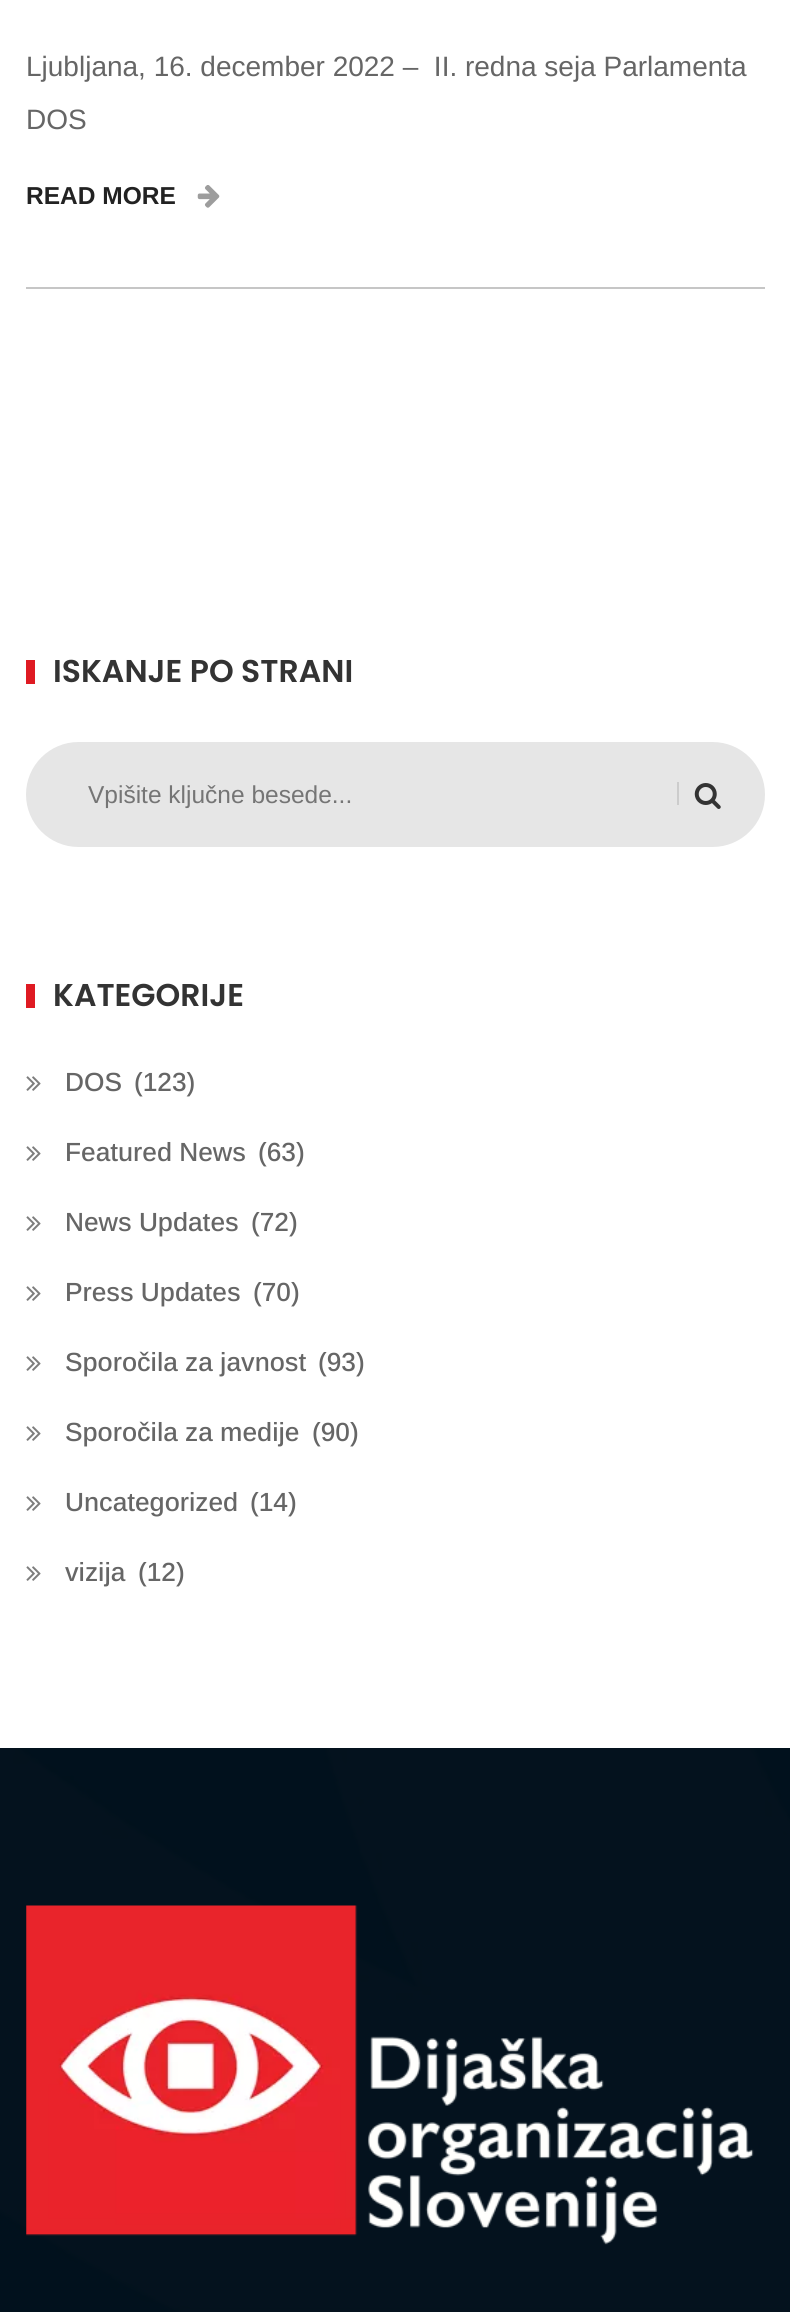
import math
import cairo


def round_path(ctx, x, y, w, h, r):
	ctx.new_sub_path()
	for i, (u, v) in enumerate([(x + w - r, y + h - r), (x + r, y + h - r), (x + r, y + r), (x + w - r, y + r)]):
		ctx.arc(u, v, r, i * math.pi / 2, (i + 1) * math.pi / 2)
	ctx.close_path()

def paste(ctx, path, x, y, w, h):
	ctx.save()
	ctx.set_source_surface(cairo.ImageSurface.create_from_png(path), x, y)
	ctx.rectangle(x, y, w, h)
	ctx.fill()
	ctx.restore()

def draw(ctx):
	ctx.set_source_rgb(1, 1, 1)
	ctx.paint()
	ctx.set_source_rgb(0.776, 0.776, 0.776)
	ctx.rectangle(26, 287, 739, 2)
	ctx.fill()
	ctx.select_font_face('Arimo')
	ctx.set_font_size(28)
	ctx.set_source_rgb(0.4, 0.4, 0.4)
	ctx.move_to(26, 76)
	ctx.show_text('Ljubljana, 16. december 2022 –  II. redna seja Parlamenta')
	ctx.move_to(26, 129)
	ctx.show_text('DOS')
	ctx.select_font_face('Arimo', cairo.FONT_SLANT_NORMAL, cairo.FONT_WEIGHT_BOLD)
	ctx.set_font_size(24.5)
	ctx.set_source_rgb(0.133, 0.133, 0.133)
	ctx.move_to(26, 204)
	ctx.show_text('READ MORE')
	paste(ctx, 'media/1.png', 197, 185, 23, 23)
	ctx.set_source_rgb(0.875, 0.102, 0.133)
	ctx.rectangle(26, 660, 9, 24)
	ctx.fill()
	ctx.select_font_face('Poppins SemiBold')
	ctx.set_font_size(31.5)
	ctx.set_source_rgb(0.2, 0.2, 0.2)
	ctx.move_to(53, 682)
	ctx.show_text('ISKANJE PO STRANI')
	ctx.set_source_rgb(0.902, 0.902, 0.902)
	round_path(ctx, 26, 742, 739, 105, 52.5)
	ctx.fill()
	ctx.select_font_face('Arimo')
	ctx.set_font_size(24.5)
	ctx.set_source_rgb(0.459, 0.459, 0.459)
	ctx.move_to(88, 803)
	ctx.show_text('Vpišite ključne besede...')
	ctx.set_source_rgb(0.8, 0.8, 0.8)
	ctx.rectangle(677, 782, 2, 23)
	ctx.fill()
	paste(ctx, 'media/2.png', 694, 783, 27, 26)
	ctx.set_source_rgb(0.875, 0.102, 0.133)
	ctx.rectangle(26, 984, 9, 24)
	ctx.fill()
	ctx.select_font_face('Poppins SemiBold')
	ctx.set_font_size(31.5)
	ctx.set_source_rgb(0.2, 0.2, 0.2)
	ctx.move_to(53, 1006)
	ctx.show_text('KATEGORIJE')
	paste(ctx, 'media/3.png', 26, 1076, 15, 15)
	ctx.select_font_face('Arimo Medium')
	ctx.set_font_size(26.25)
	ctx.set_source_rgb(0.4, 0.4, 0.4)
	ctx.move_to(65, 1091)
	ctx.show_text('DOS')
	ctx.move_to(134, 1091)
	ctx.show_text('(123)')
	paste(ctx, 'media/3.png', 26, 1146, 15, 15)
	ctx.move_to(65, 1161)
	ctx.show_text('Featured News')
	ctx.move_to(258, 1161)
	ctx.show_text('(63)')
	paste(ctx, 'media/3.png', 26, 1216, 15, 15)
	ctx.move_to(65, 1231)
	ctx.show_text('News Updates')
	ctx.move_to(251, 1231)
	ctx.show_text('(72)')
	paste(ctx, 'media/3.png', 26, 1286, 15, 15)
	ctx.move_to(65, 1301)
	ctx.show_text('Press Updates')
	ctx.move_to(253, 1301)
	ctx.show_text('(70)')
	paste(ctx, 'media/3.png', 26, 1356, 15, 15)
	ctx.move_to(65, 1371)
	ctx.show_text('Sporočila za javnost')
	ctx.move_to(318, 1371)
	ctx.show_text('(93)')
	paste(ctx, 'media/3.png', 26, 1426, 15, 15)
	ctx.move_to(65, 1441)
	ctx.show_text('Sporočila za medije')
	ctx.move_to(312, 1441)
	ctx.show_text('(90)')
	paste(ctx, 'media/3.png', 26, 1496, 15, 15)
	ctx.move_to(65, 1511)
	ctx.show_text('Uncategorized')
	ctx.move_to(250, 1511)
	ctx.show_text('(14)')
	paste(ctx, 'media/3.png', 26, 1566, 15, 15)
	ctx.move_to(65, 1581)
	ctx.show_text('vizija')
	ctx.move_to(138, 1581)
	ctx.show_text('(12)')
	paste(ctx, 'media/4.png', 0, 1748, 790, 564)
	paste(ctx, 'media/5.png', 26, 1905, 728, 340)


surface = cairo.ImageSurface(cairo.FORMAT_RGB24, 790, 2312)
ctx = cairo.Context(surface)
options = cairo.FontOptions()
options.set_hint_metrics(cairo.HINT_METRICS_OFF)
options.set_hint_style(cairo.HINT_STYLE_NONE)
ctx.set_font_options(options)
ctx.set_miter_limit(4)
draw(ctx)
surface.write_to_png('image.png')
